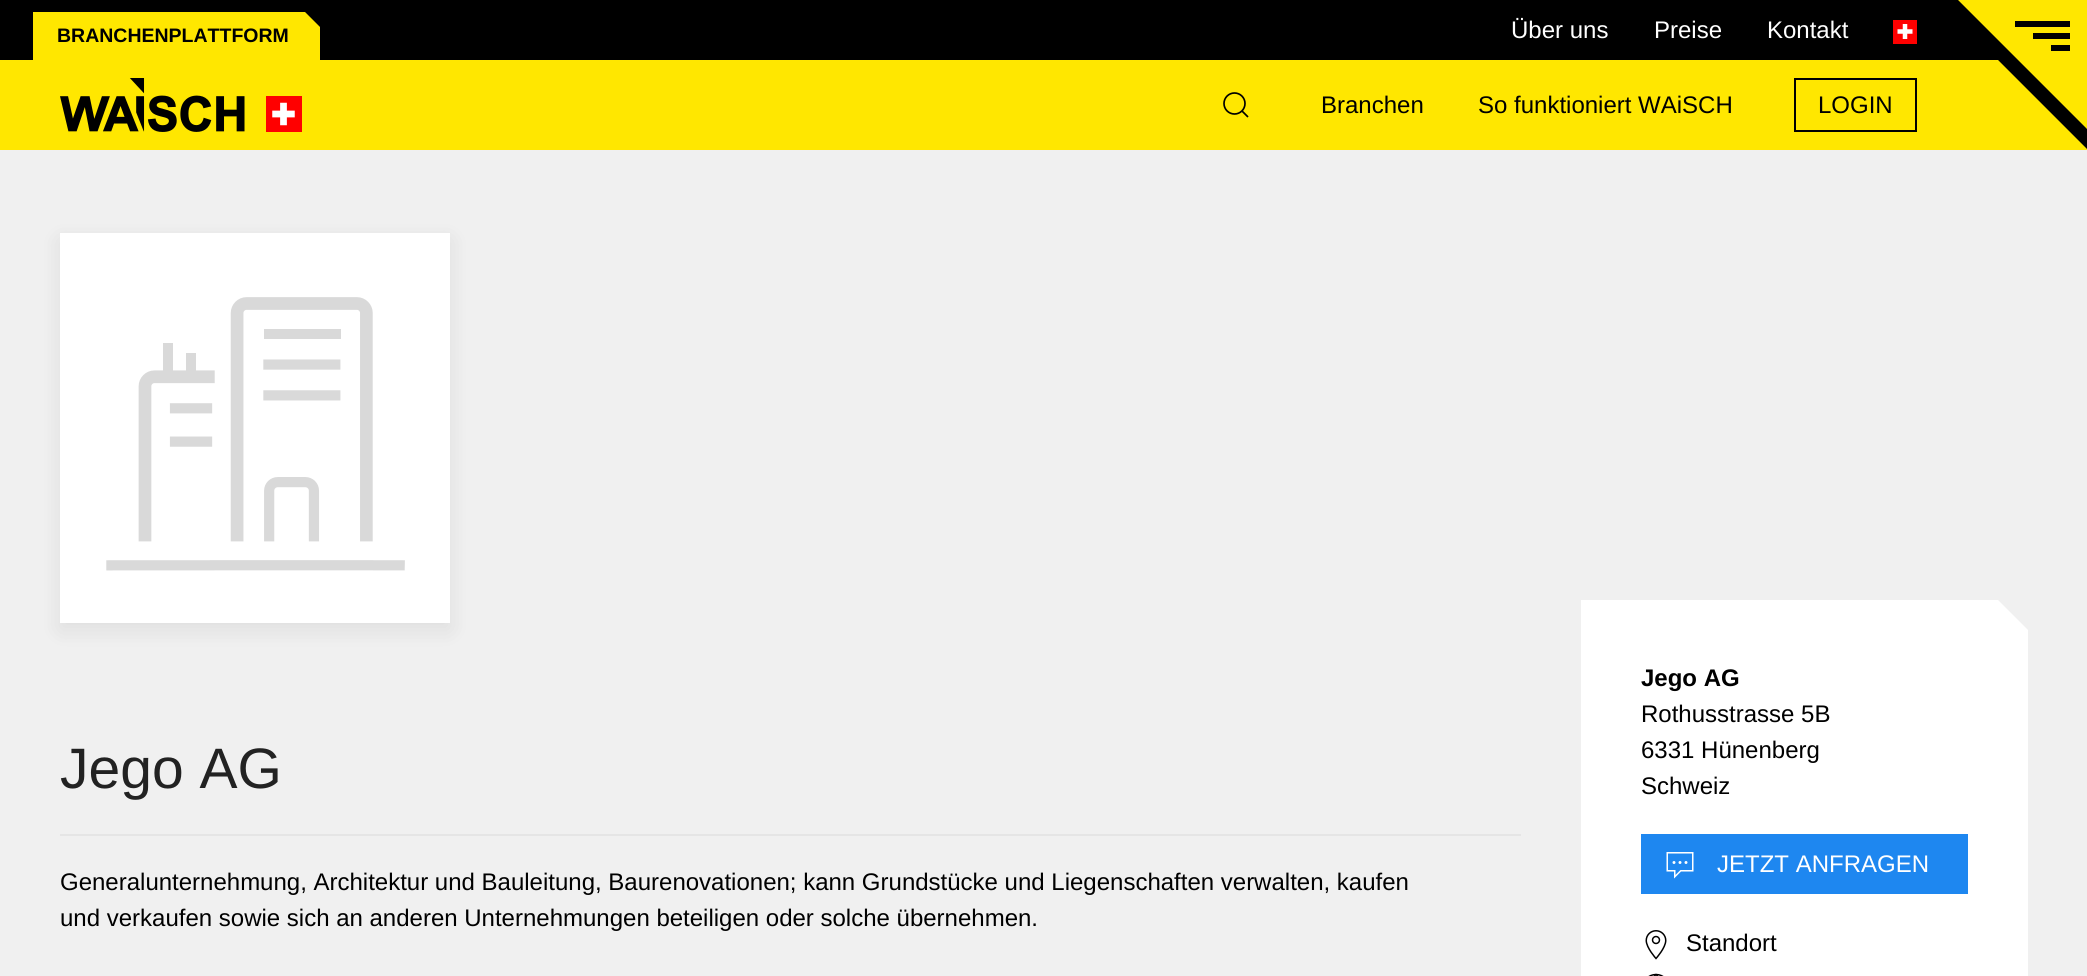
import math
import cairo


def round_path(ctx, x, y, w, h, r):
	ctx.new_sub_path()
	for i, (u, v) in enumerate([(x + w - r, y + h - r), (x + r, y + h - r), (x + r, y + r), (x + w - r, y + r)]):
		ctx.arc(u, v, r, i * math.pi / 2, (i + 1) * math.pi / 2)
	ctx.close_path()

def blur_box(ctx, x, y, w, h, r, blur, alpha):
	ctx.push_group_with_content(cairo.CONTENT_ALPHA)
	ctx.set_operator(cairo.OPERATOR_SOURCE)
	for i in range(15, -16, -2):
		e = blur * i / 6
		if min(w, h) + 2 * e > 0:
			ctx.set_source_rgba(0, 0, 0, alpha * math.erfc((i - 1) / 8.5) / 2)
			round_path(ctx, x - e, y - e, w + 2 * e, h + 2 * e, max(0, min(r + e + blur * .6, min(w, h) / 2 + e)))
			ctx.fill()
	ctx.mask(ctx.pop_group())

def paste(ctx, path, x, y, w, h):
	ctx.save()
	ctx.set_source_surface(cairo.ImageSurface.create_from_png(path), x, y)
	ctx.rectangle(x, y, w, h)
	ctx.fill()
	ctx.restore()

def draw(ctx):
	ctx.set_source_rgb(1, 0.906, 0)
	ctx.paint()
	ctx.set_source_rgb(0, 0, 0)
	ctx.rectangle(0, 0, 1998, 60)
	ctx.fill()
	ctx.new_path()
	ctx.move_to(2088, 0)
	ctx.line_to(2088, 150)
	ctx.line_to(1938, 0)
	ctx.close_path()
	ctx.fill()
	ctx.set_source_rgb(1, 0.906, 0)
	ctx.new_path()
	ctx.move_to(33, 12)
	ctx.line_to(33, 60)
	ctx.line_to(320, 60)
	ctx.line_to(320, 27)
	ctx.line_to(305, 12)
	ctx.close_path()
	ctx.fill()
	ctx.select_font_face('Liberation Sans', cairo.FONT_SLANT_NORMAL, cairo.FONT_WEIGHT_BOLD)
	ctx.set_font_size(19.5)
	ctx.set_source_rgb(0, 0, 0)
	ctx.move_to(57, 42)
	ctx.show_text('BRANCHENPLATTFORM')
	ctx.select_font_face('Liberation Sans')
	ctx.set_font_size(24)
	ctx.set_source_rgb(1, 1, 1)
	for x, y, s in [
		(1511, 38, 'Über uns'),
		(1654, 38, 'Preise'),
		(1767, 38, 'Kontakt'),
	]:
		ctx.move_to(x, y)
		ctx.show_text(s)
	paste(ctx, 'media/1.png', 1893, 20, 24, 24)
	ctx.set_source_rgb(1, 0.906, 0)
	ctx.new_path()
	ctx.move_to(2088, 0)
	ctx.line_to(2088, 130)
	ctx.line_to(1958, 0)
	ctx.close_path()
	ctx.fill()
	ctx.set_source_rgb(0, 0, 0)
	ctx.rectangle(2015, 21, 55, 6)
	ctx.rectangle(2033, 33, 37, 6)
	ctx.rectangle(2051, 45, 19, 6)
	ctx.fill()
	paste(ctx, 'media/2.png', 60, 78, 185, 54)
	paste(ctx, 'media/3.png', 266, 96, 36, 36)
	ctx.arc(1234.5, 103.5, 10.5, 0, 2 * math.pi)
	ctx.set_line_width(1.7)
	ctx.stroke()
	ctx.new_path()
	ctx.move_to(1242, 111)
	ctx.line_to(1248, 117)
	ctx.close_path()
	ctx.stroke()
	ctx.move_to(1321, 113)
	ctx.show_text('Branchen')
	ctx.move_to(1478, 113)
	ctx.show_text('So funktioniert WAiSCH')
	ctx.rectangle(1795, 79, 121, 52)
	ctx.set_line_width(2)
	ctx.stroke()
	ctx.move_to(1818, 113)
	ctx.show_text('LOGIN')
	ctx.set_source_rgb(0.941, 0.941, 0.941)
	ctx.rectangle(0, 150, 2087, 826)
	ctx.fill()
	ctx.set_source_rgb(0, 0, 0)
	blur_box(ctx, 60, 240, 390, 390, 0, 11, 0.08)
	ctx.set_source_rgb(1, 1, 1)
	ctx.rectangle(60, 233, 390, 390)
	ctx.fill()
	paste(ctx, 'media/4.png', 106, 297, 299, 274)
	ctx.set_font_size(57)
	ctx.set_source_rgb(0.133, 0.133, 0.133)
	ctx.move_to(60, 788)
	ctx.show_text('Jego AG')
	ctx.set_source_rgb(0.898, 0.898, 0.898)
	ctx.rectangle(60, 834, 1461, 2)
	ctx.fill()
	ctx.set_font_size(24)
	ctx.set_source_rgb(0, 0, 0)
	ctx.move_to(60, 890)
	ctx.show_text('Generalunternehmung, Architektur und Bauleitung, Baurenovationen; kann Grundstücke und Liegenschaften verwalten, kaufen')
	ctx.move_to(60, 926)
	ctx.show_text('und verkaufen sowie sich an anderen Unternehmungen beteiligen oder solche übernehmen.')
	ctx.set_source_rgb(1, 1, 1)
	ctx.new_path()
	ctx.move_to(1581, 600)
	ctx.line_to(1581, 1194)
	ctx.line_to(2028, 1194)
	ctx.line_to(2028, 630)
	ctx.line_to(1998, 600)
	ctx.close_path()
	ctx.fill()
	ctx.select_font_face('Liberation Sans', cairo.FONT_SLANT_NORMAL, cairo.FONT_WEIGHT_BOLD)
	ctx.set_source_rgb(0, 0, 0)
	ctx.move_to(1641, 686)
	ctx.show_text('Jego AG')
	ctx.select_font_face('Liberation Sans')
	for x, y, s in [
		(1641, 722, 'Rothusstrasse 5B'),
		(1641, 758, '6331 Hünenberg'),
		(1641, 794, 'Schweiz'),
	]:
		ctx.move_to(x, y)
		ctx.show_text(s)
	ctx.set_source_rgb(0.118, 0.529, 0.941)
	ctx.rectangle(1641, 834, 327, 60)
	ctx.fill()
	paste(ctx, 'media/5.png', 1666, 852, 28, 27)
	ctx.set_source_rgb(1, 1, 1)
	ctx.move_to(1717, 872)
	ctx.show_text('JETZT ANFRAGEN')
	paste(ctx, 'media/6.png', 1645, 930, 22, 30)
	ctx.set_source_rgb(0, 0, 0)
	ctx.move_to(1686, 951)
	ctx.show_text('Standort')
	paste(ctx, 'media/7.png', 1648, 973, 16, 3)


surface = cairo.ImageSurface(cairo.FORMAT_RGB24, 2087, 976)
ctx = cairo.Context(surface)
options = cairo.FontOptions()
options.set_hint_metrics(cairo.HINT_METRICS_OFF)
options.set_hint_style(cairo.HINT_STYLE_NONE)
ctx.set_font_options(options)
ctx.set_miter_limit(4)
draw(ctx)
surface.write_to_png('image.png')
